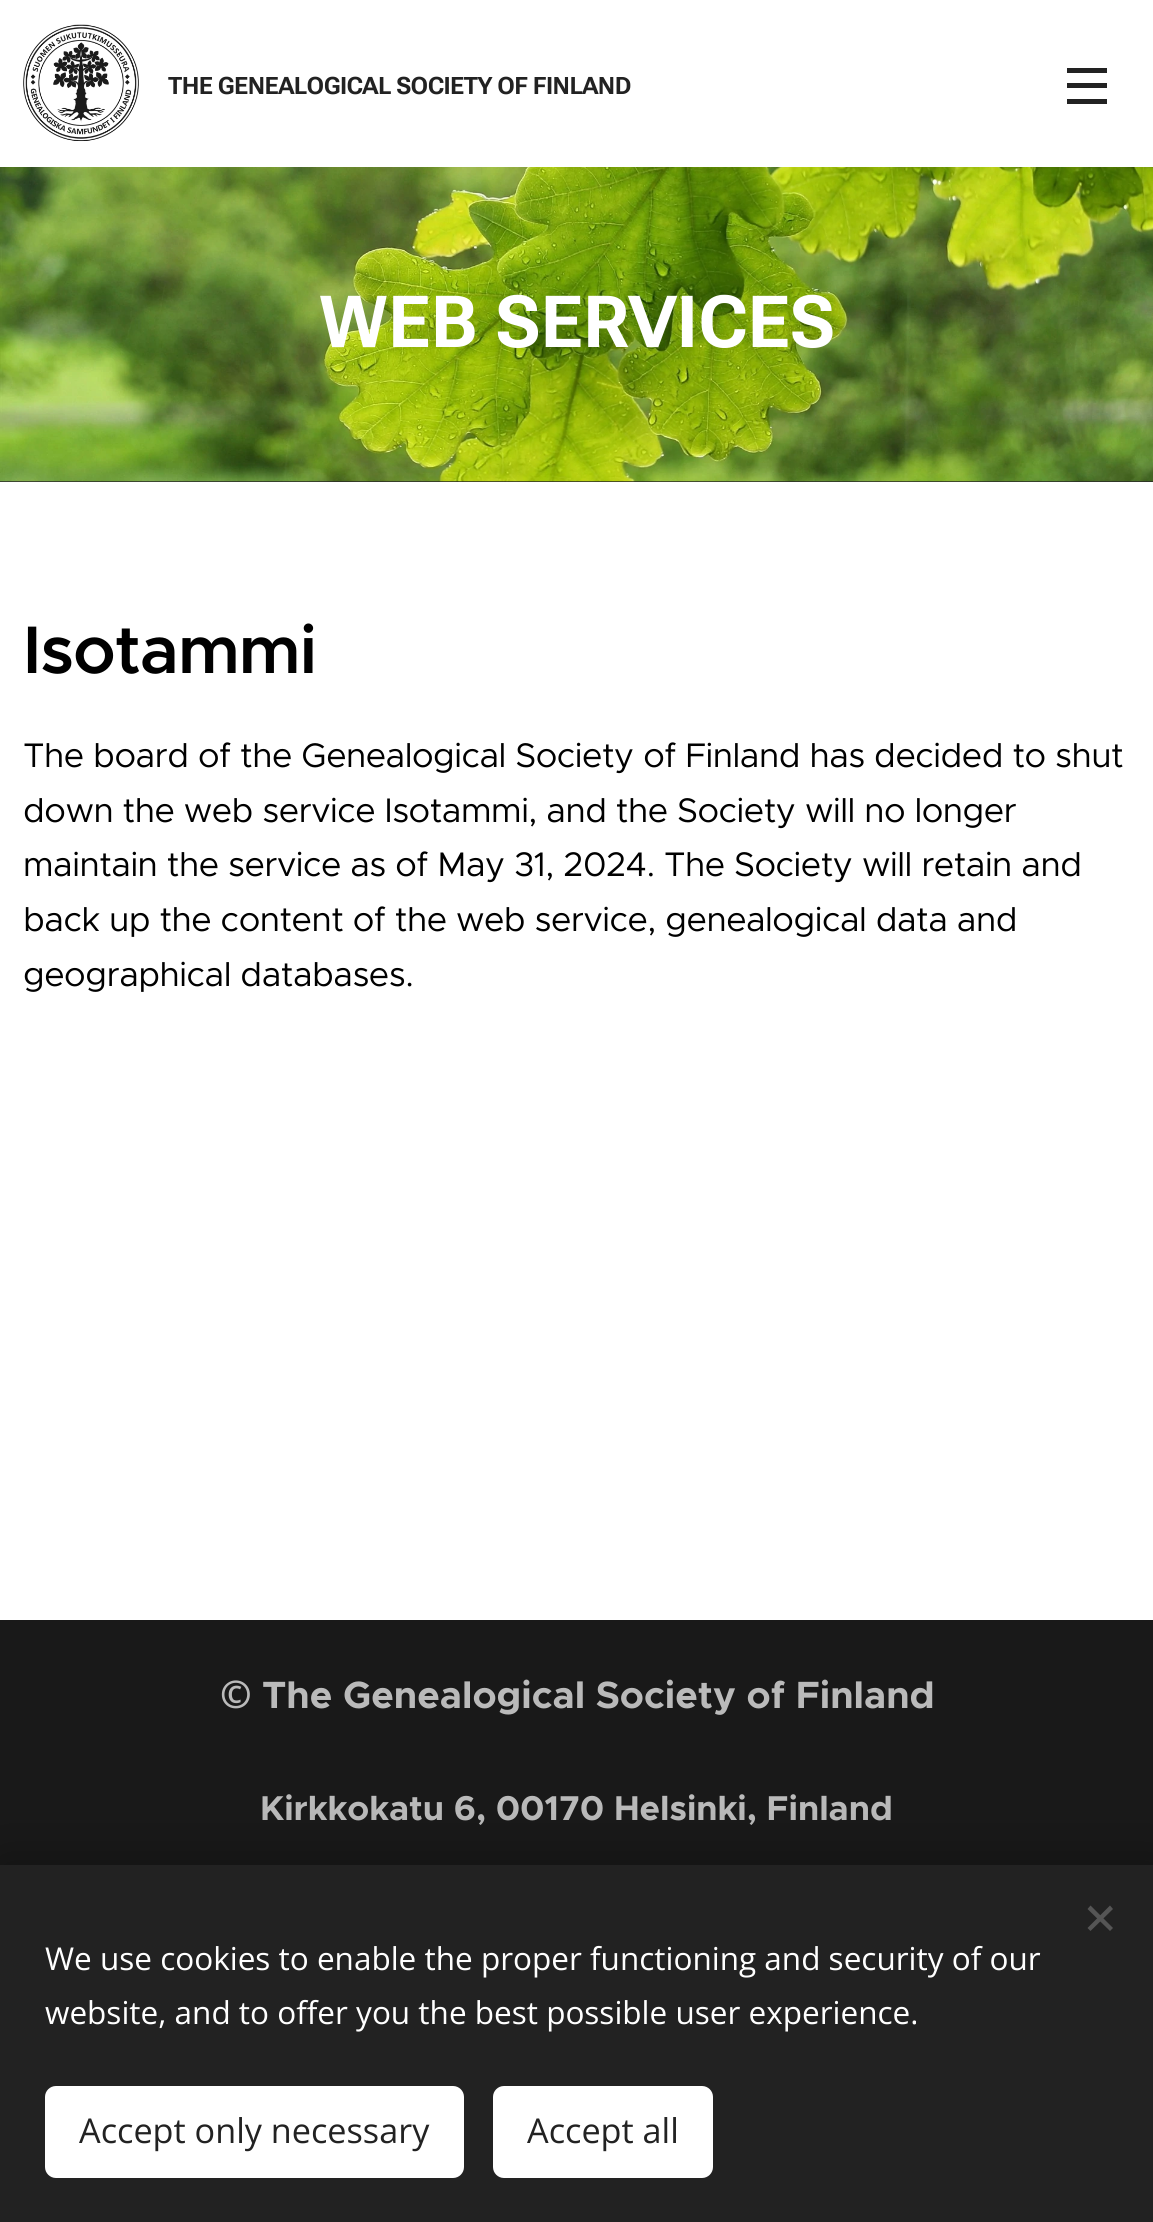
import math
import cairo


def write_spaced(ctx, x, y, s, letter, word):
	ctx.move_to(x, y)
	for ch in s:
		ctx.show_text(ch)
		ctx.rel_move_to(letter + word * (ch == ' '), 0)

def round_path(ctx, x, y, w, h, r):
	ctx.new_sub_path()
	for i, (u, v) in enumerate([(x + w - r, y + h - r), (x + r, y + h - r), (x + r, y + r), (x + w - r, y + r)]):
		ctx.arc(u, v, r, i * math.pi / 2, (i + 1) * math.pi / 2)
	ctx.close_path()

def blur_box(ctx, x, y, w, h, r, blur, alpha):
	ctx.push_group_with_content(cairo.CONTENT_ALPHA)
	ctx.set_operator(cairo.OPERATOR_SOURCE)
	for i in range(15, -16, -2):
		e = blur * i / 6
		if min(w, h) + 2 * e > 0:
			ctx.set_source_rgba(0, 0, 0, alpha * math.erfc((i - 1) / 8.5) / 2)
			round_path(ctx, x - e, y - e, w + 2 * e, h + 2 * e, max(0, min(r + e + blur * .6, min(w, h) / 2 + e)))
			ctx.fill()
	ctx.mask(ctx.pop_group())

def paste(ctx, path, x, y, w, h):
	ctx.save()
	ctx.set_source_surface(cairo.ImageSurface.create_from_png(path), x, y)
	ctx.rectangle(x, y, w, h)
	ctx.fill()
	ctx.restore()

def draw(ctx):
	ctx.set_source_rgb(1, 1, 1)
	ctx.paint()
	paste(ctx, 'media/1.png', 23, 24, 116, 118)
	ctx.select_font_face('Roboto Flex', cairo.FONT_SLANT_NORMAL, cairo.FONT_WEIGHT_BOLD)
	ctx.set_font_size(23.9)
	ctx.set_source_rgb(0.133, 0.133, 0.133)
	write_spaced(ctx, 168, 94, 'THE GENEALOGICAL SOCIETY OF FINLAND', -0.5, 0)
	ctx.rectangle(1067, 83, 40, 5)
	ctx.rectangle(1067, 68, 40, 5)
	ctx.rectangle(1067, 99, 40, 5)
	ctx.fill()
	ctx.set_source_rgb(0.153, 0.153, 0.153)
	ctx.rectangle(0, 481, 1153, 1)
	ctx.fill()
	paste(ctx, 'media/2.png', 0, 167, 1153, 315)
	ctx.set_font_size(72)
	ctx.set_source_rgb(1, 1, 1)
	ctx.move_to(319, 347)
	ctx.show_text('WEB SERVICES')
	ctx.select_font_face('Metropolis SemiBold')
	ctx.set_font_size(67.5)
	ctx.set_source_rgb(0, 0, 0)
	write_spaced(ctx, 23, 673, 'Isotammi', -1, 0)
	ctx.select_font_face('Metropolis')
	ctx.set_font_size(34.2)
	for x, y, s in [
		(23, 767, 'The board of the Genealogical Society of Finland has decided to shut'),
		(23, 822, 'down the web service Isotammi, and the Society will no longer'),
		(23, 876, 'maintain the service as of May 31, 2024. The Society will retain and'),
		(23, 931, 'back up the content of the web service, genealogical data and'),
		(23, 986, 'geographical databases.'),
	]:
		write_spaced(ctx, x, y, s, -0.5, 0)
	ctx.set_source_rgb(0.098, 0.098, 0.098)
	ctx.rectangle(0, 1620, 1153, 245)
	ctx.fill()
	ctx.select_font_face('Noto Sans', cairo.FONT_SLANT_NORMAL, cairo.FONT_WEIGHT_BOLD)
	ctx.set_font_size(38.1)
	ctx.set_source_rgb(0.729, 0.729, 0.729)
	ctx.move_to(220, 1708)
	ctx.show_text('©')
	ctx.select_font_face('Metropolis', cairo.FONT_SLANT_NORMAL, cairo.FONT_WEIGHT_BOLD)
	ctx.move_to(262, 1708)
	ctx.show_text('The Genealogical Society of Finland')
	ctx.set_font_size(34.6)
	ctx.move_to(260, 1820)
	ctx.show_text('Kirkkokatu 6, 00170 Helsinki, Finland')
	ctx.set_source_rgb(0, 0, 0)
	blur_box(ctx, 0, 1865, 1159, 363, 0, 28, 0.33)
	ctx.set_source_rgb(0.133, 0.133, 0.133)
	ctx.rectangle(0, 1865, 1153, 357)
	ctx.fill()
	ctx.set_source_rgb(0.333, 0.333, 0.333)
	ctx.new_path()
	ctx.move_to(1087.5, 1928)
	ctx.line_to(1110, 1905.5)
	ctx.line_to(1113, 1909)
	ctx.line_to(1090.5, 1931)
	ctx.close_path()
	ctx.fill()
	ctx.new_path()
	ctx.move_to(1090.5, 1905.5)
	ctx.line_to(1113, 1928)
	ctx.line_to(1110, 1931)
	ctx.line_to(1087.5, 1909)
	ctx.close_path()
	ctx.fill()
	ctx.select_font_face('Open Sans')
	ctx.set_font_size(31.5)
	ctx.set_source_rgb(1, 1, 1)
	ctx.move_to(45, 1970)
	ctx.show_text('We use cookies to enable the proper functioning and security of our')
	ctx.move_to(45, 2024)
	ctx.show_text('website, and to offer you the best possible user experience.')
	round_path(ctx, 45, 2086, 419, 92, 11)
	ctx.fill()
	ctx.set_font_size(34.2)
	ctx.set_source_rgb(0.133, 0.133, 0.133)
	ctx.move_to(79, 2143)
	ctx.show_text('Accept only necessary')
	ctx.set_source_rgb(1, 1, 1)
	round_path(ctx, 493, 2086, 220, 92, 11)
	ctx.fill()
	ctx.set_source_rgb(0.133, 0.133, 0.133)
	ctx.move_to(527, 2143)
	ctx.show_text('Accept all')


surface = cairo.ImageSurface(cairo.FORMAT_RGB24, 1153, 2222)
ctx = cairo.Context(surface)
options = cairo.FontOptions()
options.set_hint_metrics(cairo.HINT_METRICS_OFF)
options.set_hint_style(cairo.HINT_STYLE_NONE)
ctx.set_font_options(options)
ctx.set_miter_limit(4)
draw(ctx)
surface.write_to_png('image.png')
